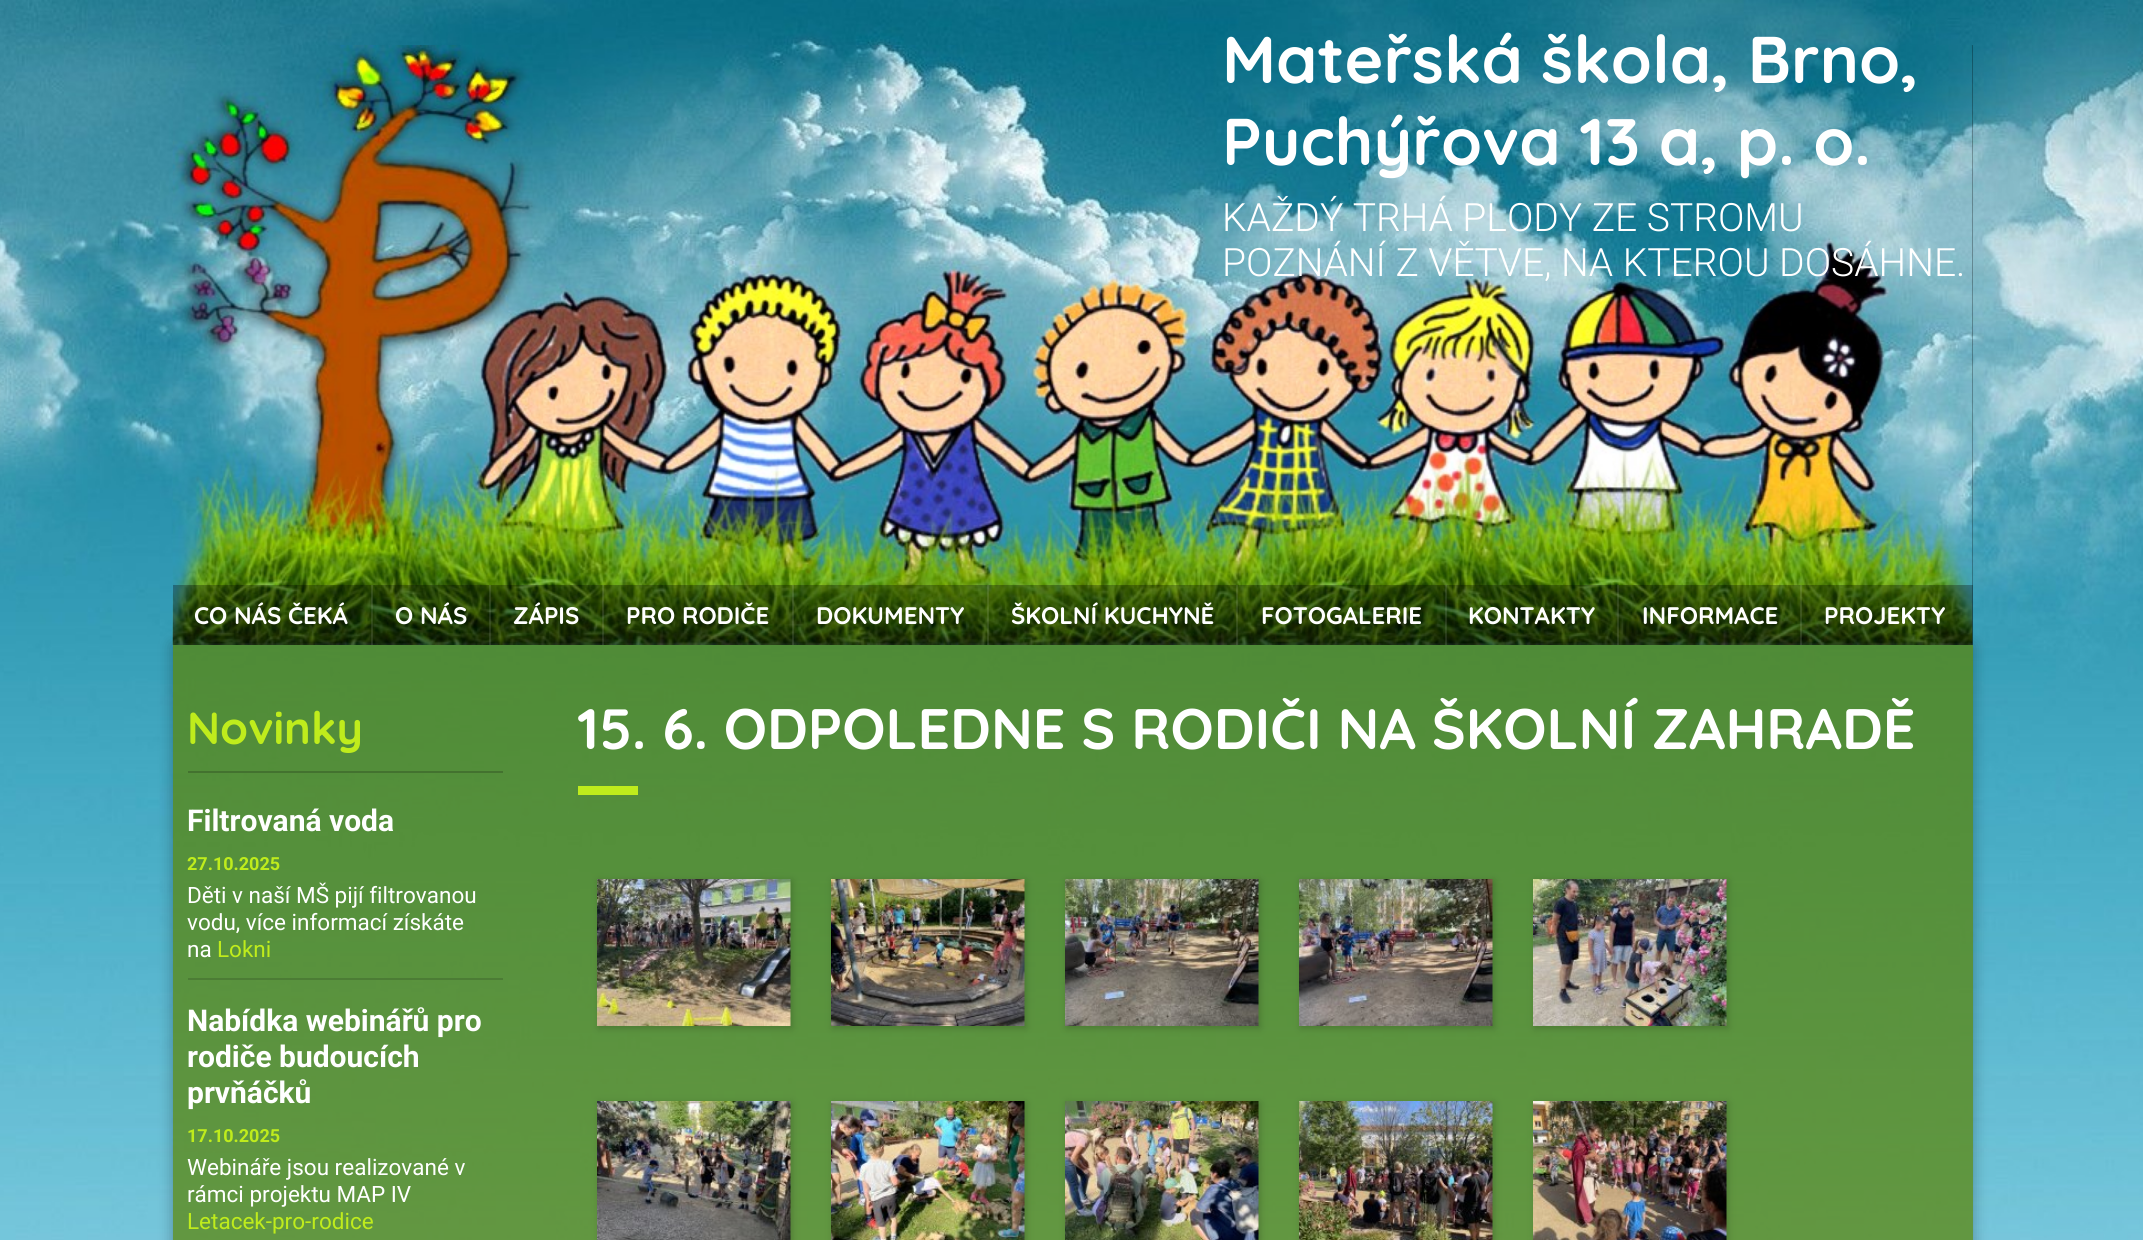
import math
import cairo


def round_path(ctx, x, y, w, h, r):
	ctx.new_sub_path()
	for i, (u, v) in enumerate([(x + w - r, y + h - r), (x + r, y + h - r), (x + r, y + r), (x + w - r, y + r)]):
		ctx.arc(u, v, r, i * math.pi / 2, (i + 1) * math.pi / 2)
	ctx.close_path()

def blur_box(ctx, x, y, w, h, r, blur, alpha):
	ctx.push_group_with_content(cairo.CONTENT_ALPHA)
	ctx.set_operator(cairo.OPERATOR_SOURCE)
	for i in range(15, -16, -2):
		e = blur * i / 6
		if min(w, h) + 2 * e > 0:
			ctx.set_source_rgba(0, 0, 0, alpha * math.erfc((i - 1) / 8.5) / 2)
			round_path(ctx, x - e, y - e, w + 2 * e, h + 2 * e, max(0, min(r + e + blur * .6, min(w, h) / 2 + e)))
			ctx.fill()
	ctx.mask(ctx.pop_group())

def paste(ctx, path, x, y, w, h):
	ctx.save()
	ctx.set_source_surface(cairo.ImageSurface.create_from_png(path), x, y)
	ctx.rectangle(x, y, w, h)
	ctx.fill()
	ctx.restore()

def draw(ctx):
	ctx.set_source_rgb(1, 1, 1)
	ctx.paint()
	paste(ctx, 'media/1.png', 0, 0, 2143, 1240)
	ctx.save()
	ctx.rectangle(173, 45, 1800, 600)
	ctx.clip()
	ctx.set_source_rgb(0, 0, 0)
	blur_box(ctx, 173, 45, 1800, 600, 0, 4, 0.7)
	ctx.restore()
	paste(ctx, 'media/2.png', 172, 45, 1801, 600)
	ctx.select_font_face('Quicksand', cairo.FONT_SLANT_NORMAL, cairo.FONT_WEIGHT_BOLD)
	ctx.set_font_size(66)
	ctx.set_source_rgb(1, 1, 1)
	ctx.move_to(1222, 83)
	ctx.show_text('Mateřská škola, Brno,')
	ctx.move_to(1222, 165)
	ctx.show_text('Puchýřova 13 a, p. o.')
	ctx.select_font_face('Roboto Light')
	ctx.set_font_size(39)
	ctx.move_to(1222, 231)
	ctx.show_text('KAŽDÝ TRHÁ PLODY ZE STROMU')
	ctx.move_to(1222, 276)
	ctx.show_text('POZNÁNÍ Z VĚTVE, NA KTEROU DOSÁHNE.')
	ctx.save()
	ctx.set_fill_rule(cairo.FILL_RULE_EVEN_ODD)
	ctx.new_path()
	ctx.move_to(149, 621)
	ctx.line_to(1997, 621)
	ctx.line_to(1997, 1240)
	ctx.line_to(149, 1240)
	ctx.close_path()
	ctx.move_to(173, 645)
	ctx.line_to(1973, 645)
	ctx.line_to(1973, 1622)
	ctx.line_to(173, 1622)
	ctx.close_path()
	ctx.clip()
	ctx.set_source_rgb(0, 0, 0)
	blur_box(ctx, 173, 645, 1800, 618, 0, 7.5, 0.3)
	ctx.restore()
	ctx.set_source_rgba(0, 0, 0, 0.3)
	ctx.rectangle(173, 585, 1800, 60)
	ctx.fill()
	ctx.set_source_rgba(1, 1, 1, 0.1)
	ctx.rectangle(371, 585, 2, 60)
	ctx.fill()
	ctx.select_font_face('Quicksand', cairo.FONT_SLANT_NORMAL, cairo.FONT_WEIGHT_BOLD)
	ctx.set_font_size(24)
	ctx.set_source_rgb(1, 1, 1)
	ctx.move_to(194, 624)
	ctx.show_text('CO NÁS ČEKÁ')
	ctx.set_source_rgba(1, 1, 1, 0.1)
	ctx.rectangle(489, 585, 2, 60)
	ctx.fill()
	ctx.set_source_rgb(1, 1, 1)
	ctx.move_to(395, 624)
	ctx.show_text('O NÁS')
	ctx.set_source_rgba(1, 1, 1, 0.1)
	ctx.rectangle(602, 585, 2, 60)
	ctx.fill()
	ctx.set_source_rgb(1, 1, 1)
	ctx.move_to(513, 624)
	ctx.show_text('ZÁPIS')
	ctx.set_source_rgba(1, 1, 1, 0.1)
	ctx.rectangle(792, 585, 2, 60)
	ctx.fill()
	ctx.set_source_rgb(1, 1, 1)
	ctx.move_to(626, 624)
	ctx.show_text('PRO RODIČE')
	ctx.set_source_rgba(1, 1, 1, 0.1)
	ctx.rectangle(987, 585, 2, 60)
	ctx.fill()
	ctx.set_source_rgb(1, 1, 1)
	ctx.move_to(816, 624)
	ctx.show_text('DOKUMENTY')
	ctx.set_source_rgba(1, 1, 1, 0.1)
	ctx.rectangle(1236, 585, 2, 60)
	ctx.fill()
	ctx.set_source_rgb(1, 1, 1)
	ctx.move_to(1011, 624)
	ctx.show_text('ŠKOLNÍ KUCHYNĚ')
	ctx.set_source_rgba(1, 1, 1, 0.1)
	ctx.rectangle(1445, 585, 2, 60)
	ctx.fill()
	ctx.set_source_rgb(1, 1, 1)
	ctx.move_to(1261, 624)
	ctx.show_text('FOTOGALERIE')
	ctx.set_source_rgba(1, 1, 1, 0.1)
	ctx.rectangle(1617, 585, 2, 60)
	ctx.fill()
	ctx.set_source_rgb(1, 1, 1)
	ctx.move_to(1468, 624)
	ctx.show_text('KONTAKTY')
	ctx.set_source_rgba(1, 1, 1, 0.1)
	ctx.rectangle(1800, 585, 2, 60)
	ctx.fill()
	ctx.set_source_rgb(1, 1, 1)
	ctx.move_to(1642, 624)
	ctx.show_text('INFORMACE')
	ctx.move_to(1824, 624)
	ctx.show_text('PROJEKTY')
	ctx.set_source_rgba(0.353, 0.514, 0, 0.7)
	ctx.rectangle(173, 645, 1800, 595)
	ctx.fill()
	ctx.set_source_rgb(0.263, 0.447, 0.184)
	ctx.rectangle(188, 771, 315, 2)
	ctx.fill()
	ctx.set_font_size(45)
	ctx.set_source_rgb(0.749, 0.922, 0.11)
	ctx.move_to(187, 744)
	ctx.show_text('Novinky')
	ctx.set_source_rgb(0.298, 0.486, 0.208)
	ctx.rectangle(188, 978, 315, 2)
	ctx.fill()
	ctx.select_font_face('Roboto', cairo.FONT_SLANT_NORMAL, cairo.FONT_WEIGHT_BOLD)
	ctx.set_font_size(30)
	ctx.set_source_rgb(1, 1, 1)
	ctx.move_to(187, 831)
	ctx.show_text('Filtrovaná voda')
	ctx.set_font_size(18)
	ctx.set_source_rgb(0.749, 0.922, 0.11)
	ctx.move_to(187, 870)
	ctx.show_text('27.10.2025')
	ctx.select_font_face('Roboto')
	ctx.set_font_size(22.5)
	ctx.set_source_rgb(1, 1, 1)
	for x, y, s in [
		(187, 903, 'Děti v naší MŠ pijí filtrovanou'),
		(187, 930, 'vodu, více informací získáte'),
		(187, 957, 'na'),
	]:
		ctx.move_to(x, y)
		ctx.show_text(s)
	ctx.set_source_rgb(0.749, 0.922, 0.11)
	ctx.move_to(217, 957)
	ctx.show_text('Lokni')
	ctx.select_font_face('Roboto', cairo.FONT_SLANT_NORMAL, cairo.FONT_WEIGHT_BOLD)
	ctx.set_font_size(30)
	ctx.set_source_rgb(1, 1, 1)
	for x, y, s in [
		(187, 1031, 'Nabídka webinářů pro'),
		(187, 1067, 'rodiče budoucích'),
		(187, 1103, 'prvňáčků'),
	]:
		ctx.move_to(x, y)
		ctx.show_text(s)
	ctx.set_font_size(18)
	ctx.set_source_rgb(0.749, 0.922, 0.11)
	ctx.move_to(187, 1142)
	ctx.show_text('17.10.2025')
	ctx.select_font_face('Roboto')
	ctx.set_font_size(22.5)
	ctx.set_source_rgb(1, 1, 1)
	ctx.move_to(187, 1175)
	ctx.show_text('Webináře jsou realizované v')
	ctx.move_to(187, 1202)
	ctx.show_text('rámci projektu MAP IV')
	ctx.set_source_rgb(0.749, 0.922, 0.11)
	ctx.move_to(187, 1229)
	ctx.show_text('Letacek-pro-rodice')
	ctx.select_font_face('Quicksand', cairo.FONT_SLANT_NORMAL, cairo.FONT_WEIGHT_BOLD)
	ctx.set_font_size(57)
	ctx.set_source_rgb(1, 1, 1)
	ctx.move_to(577, 749)
	ctx.show_text('15. 6. ODPOLEDNE S RODIČI NA ŠKOLNÍ ZAHRADĚ')
	ctx.set_source_rgb(0.749, 0.922, 0.11)
	ctx.rectangle(578, 786, 60, 9)
	ctx.fill()
	ctx.set_source_rgb(0, 0, 0)
	blur_box(ctx, 599, 881, 193, 147, 0, 4, 0.2)
	paste(ctx, 'media/3.png', 597, 879, 194, 147)
	blur_box(ctx, 833, 881, 193, 147, 0, 4, 0.2)
	paste(ctx, 'media/4.png', 831, 879, 194, 147)
	blur_box(ctx, 1067, 881, 193, 147, 0, 4, 0.2)
	paste(ctx, 'media/5.png', 1065, 879, 194, 147)
	blur_box(ctx, 1301, 881, 193, 147, 0, 4, 0.2)
	paste(ctx, 'media/6.png', 1299, 879, 194, 147)
	blur_box(ctx, 1535, 881, 193, 147, 0, 4, 0.2)
	paste(ctx, 'media/7.png', 1533, 879, 194, 147)
	blur_box(ctx, 599, 1103, 193, 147, 0, 4, 0.2)
	paste(ctx, 'media/8.png', 597, 1101, 194, 139)
	blur_box(ctx, 833, 1103, 193, 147, 0, 4, 0.2)
	paste(ctx, 'media/9.png', 831, 1101, 194, 139)
	blur_box(ctx, 1067, 1103, 193, 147, 0, 4, 0.2)
	paste(ctx, 'media/10.png', 1065, 1101, 194, 139)
	blur_box(ctx, 1301, 1103, 193, 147, 0, 4, 0.2)
	paste(ctx, 'media/11.png', 1299, 1101, 194, 139)
	blur_box(ctx, 1535, 1103, 193, 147, 0, 4, 0.2)
	paste(ctx, 'media/12.png', 1533, 1101, 194, 139)


surface = cairo.ImageSurface(cairo.FORMAT_RGB24, 2143, 1240)
ctx = cairo.Context(surface)
options = cairo.FontOptions()
options.set_hint_metrics(cairo.HINT_METRICS_OFF)
options.set_hint_style(cairo.HINT_STYLE_NONE)
ctx.set_font_options(options)
ctx.set_miter_limit(4)
draw(ctx)
surface.write_to_png('image.png')
